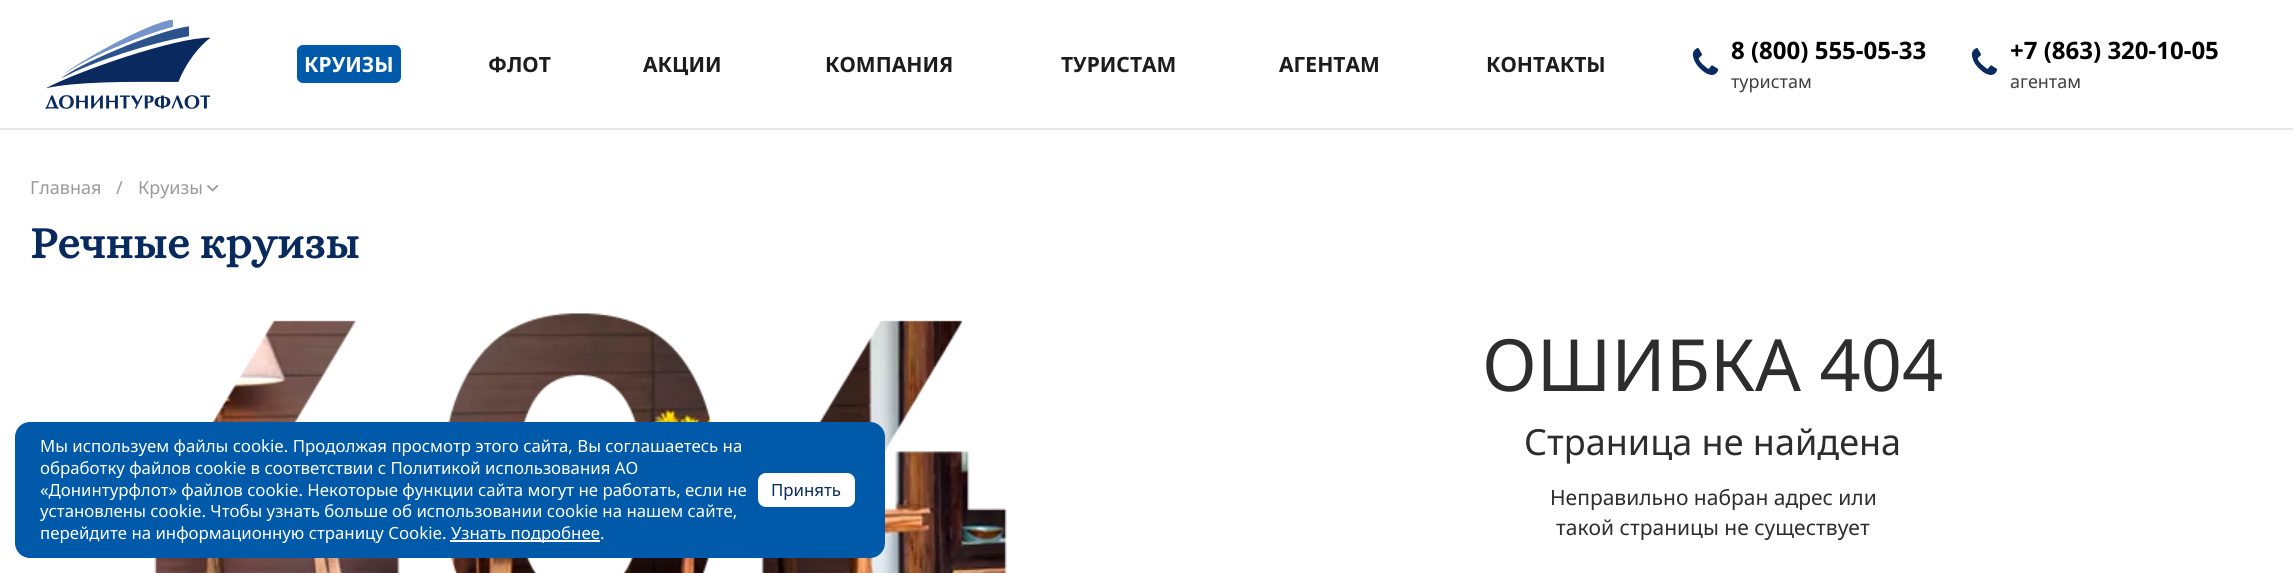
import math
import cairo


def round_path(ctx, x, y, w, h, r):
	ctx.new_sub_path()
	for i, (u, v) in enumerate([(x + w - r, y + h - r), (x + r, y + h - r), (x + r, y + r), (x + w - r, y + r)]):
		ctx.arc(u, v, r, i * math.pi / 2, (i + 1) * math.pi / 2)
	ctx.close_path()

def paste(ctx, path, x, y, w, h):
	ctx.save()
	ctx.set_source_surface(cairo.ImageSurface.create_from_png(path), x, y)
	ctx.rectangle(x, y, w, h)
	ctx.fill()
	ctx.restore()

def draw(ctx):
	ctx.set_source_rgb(1, 1, 1)
	ctx.paint()
	ctx.set_source_rgb(0.91, 0.91, 0.91)
	ctx.rectangle(0, 128, 2293, 2)
	ctx.fill()
	paste(ctx, 'media/1.png', 45, 20, 165, 90)
	ctx.set_source_rgb(0, 0.353, 0.663)
	round_path(ctx, 297, 45, 104, 38, 6)
	ctx.fill()
	ctx.select_font_face('Noto Sans', cairo.FONT_SLANT_NORMAL, cairo.FONT_WEIGHT_BOLD)
	ctx.set_font_size(21)
	ctx.set_source_rgb(1, 1, 1)
	ctx.move_to(304, 72)
	ctx.show_text('КРУИЗЫ')
	ctx.set_source_rgb(0.114, 0.114, 0.114)
	for x, y, s in [
		(488, 72, 'ФЛОТ'),
		(643, 72, 'АКЦИИ'),
		(825, 72, 'КОМПАНИЯ'),
		(1061, 72, 'ТУРИСТАМ'),
		(1279, 72, 'АГЕНТАМ'),
		(1486, 72, 'КОНТАКТЫ'),
	]:
		ctx.move_to(x, y)
		ctx.show_text(s)
	paste(ctx, 'media/2.png', 1692, 48, 27, 27)
	ctx.set_font_size(24)
	ctx.set_source_rgb(0, 0, 0)
	ctx.move_to(1731, 59)
	ctx.show_text('8 (800) 555-05-33')
	ctx.select_font_face('Noto Sans')
	ctx.set_font_size(18)
	ctx.set_source_rgb(0.247, 0.247, 0.247)
	ctx.move_to(1731, 88)
	ctx.show_text('туристам')
	paste(ctx, 'media/2.png', 1971, 48, 27, 27)
	ctx.select_font_face('Noto Sans', cairo.FONT_SLANT_NORMAL, cairo.FONT_WEIGHT_BOLD)
	ctx.set_font_size(24)
	ctx.set_source_rgb(0, 0, 0)
	ctx.move_to(2010, 59)
	ctx.show_text('+7 (863) 320-10-05')
	ctx.select_font_face('Noto Sans')
	ctx.set_font_size(18)
	ctx.set_source_rgb(0.247, 0.247, 0.247)
	ctx.move_to(2010, 88)
	ctx.show_text('агентам')
	ctx.set_source_rgb(0.604, 0.604, 0.604)
	for x, y, s in [
		(30, 194, 'Главная'),
		(116, 194, '/'),
		(138, 194, 'Круизы'),
	]:
		ctx.move_to(x, y)
		ctx.show_text(s)
	paste(ctx, 'media/3.png', 207, 185, 12, 7)
	ctx.select_font_face('Alice', cairo.FONT_SLANT_NORMAL, cairo.FONT_WEIGHT_BOLD)
	ctx.set_font_size(45)
	ctx.set_source_rgb(0.039, 0.165, 0.373)
	ctx.move_to(30, 258)
	ctx.show_text('Речные круизы')
	paste(ctx, 'media/4.png', 154, 313, 853, 260)
	ctx.select_font_face('Noto Sans')
	ctx.set_font_size(72)
	ctx.set_source_rgb(0.176, 0.176, 0.176)
	ctx.move_to(1482, 391)
	ctx.show_text('ОШИБКА 404')
	ctx.set_font_size(36)
	ctx.move_to(1524, 455)
	ctx.show_text('Страница не найдена')
	ctx.set_font_size(21)
	ctx.move_to(1550, 505)
	ctx.show_text('Неправильно набран адрес или')
	ctx.move_to(1556, 535)
	ctx.show_text('такой страницы не существует')
	ctx.set_source_rgb(0, 0.353, 0.663)
	round_path(ctx, 15, 422, 870, 136, 15)
	ctx.fill()
	ctx.set_font_size(16.8)
	ctx.set_source_rgb(1, 1, 1)
	for x, y, s in [
		(40, 452, 'Мы используем файлы cookie. Продолжая просмотр этого сайта, Вы соглашаетесь на'),
		(40, 474, 'обработку файлов cookie в соответствии с Политикой использования АО'),
		(40, 496, '«Донинтурфлот» файлов cookie. Некоторые функции сайта могут не работать, если не'),
		(40, 517, 'установлены cookie. Чтобы узнать больше об использовании cookie на нашем сайте,'),
		(40, 539, 'перейдите на информационную страницу Cookie.'),
	]:
		ctx.move_to(x, y)
		ctx.show_text(s)
	ctx.rectangle(450, 540, 150, 2)
	ctx.fill()
	ctx.move_to(451, 539)
	ctx.show_text('Узнать подробнее.')
	round_path(ctx, 758, 473, 97, 34, 8)
	ctx.fill()
	ctx.set_source_rgb(0.039, 0.165, 0.373)
	ctx.move_to(771, 496)
	ctx.show_text('Принять')


surface = cairo.ImageSurface(cairo.FORMAT_RGB24, 2293, 573)
ctx = cairo.Context(surface)
options = cairo.FontOptions()
options.set_hint_metrics(cairo.HINT_METRICS_OFF)
options.set_hint_style(cairo.HINT_STYLE_NONE)
ctx.set_font_options(options)
ctx.set_miter_limit(4)
draw(ctx)
surface.write_to_png('image.png')
